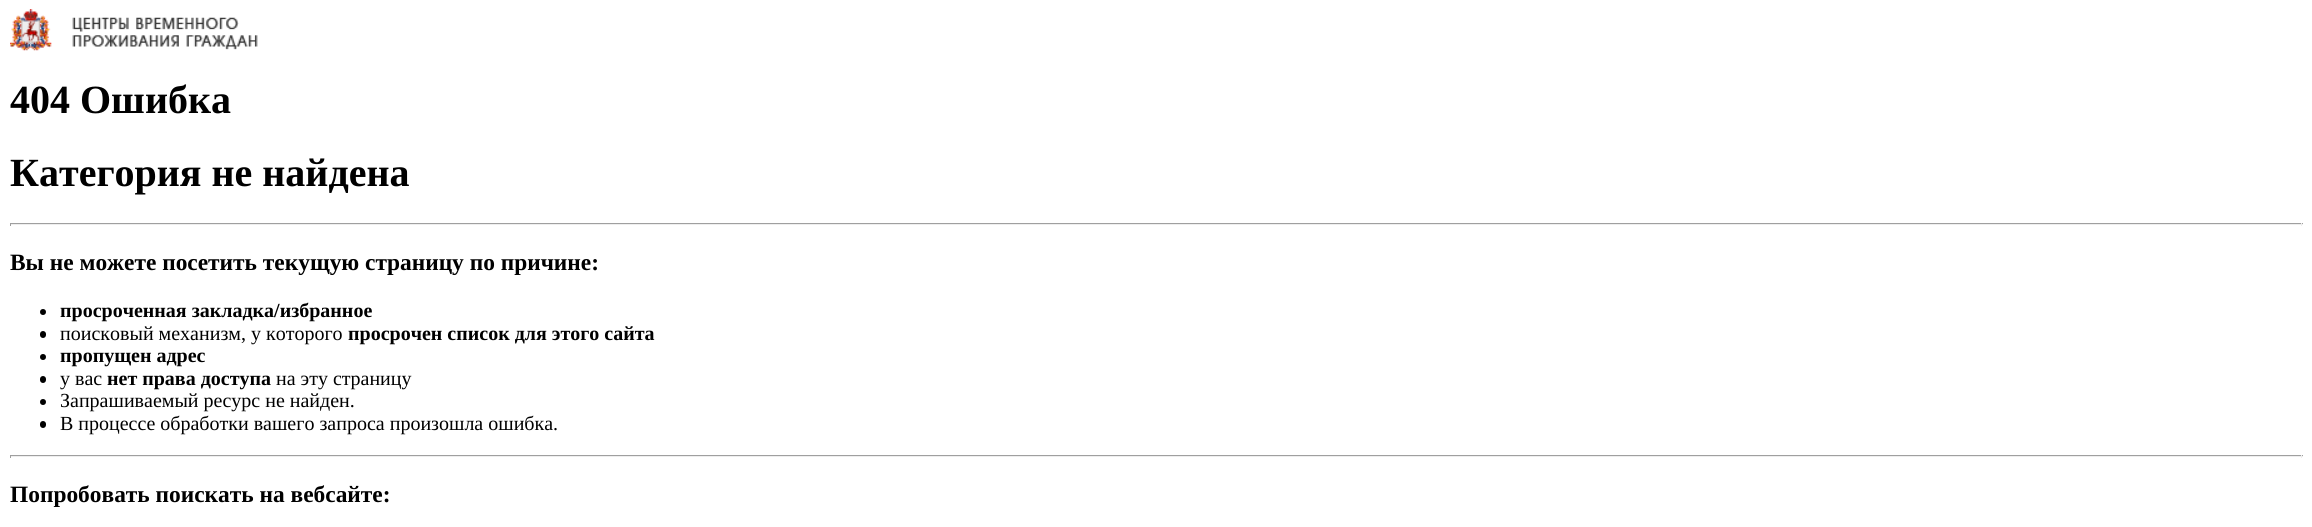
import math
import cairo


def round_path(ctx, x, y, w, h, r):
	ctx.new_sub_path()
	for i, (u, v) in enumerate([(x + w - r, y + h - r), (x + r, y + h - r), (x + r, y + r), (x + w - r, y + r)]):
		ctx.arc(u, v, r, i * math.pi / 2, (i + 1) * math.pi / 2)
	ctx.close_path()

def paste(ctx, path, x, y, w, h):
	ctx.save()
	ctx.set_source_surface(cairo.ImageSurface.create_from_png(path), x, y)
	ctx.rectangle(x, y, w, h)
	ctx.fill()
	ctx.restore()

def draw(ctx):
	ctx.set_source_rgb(1, 1, 1)
	ctx.paint()
	paste(ctx, 'media/1.png', 10, 9, 248, 42)
	ctx.select_font_face('Liberation Serif', cairo.FONT_SLANT_NORMAL, cairo.FONT_WEIGHT_BOLD)
	ctx.set_font_size(40)
	ctx.set_source_rgb(0, 0, 0)
	ctx.move_to(10, 113)
	ctx.show_text('404 Ошибка')
	ctx.move_to(10, 186)
	ctx.show_text('Категория не найдена')
	ctx.set_source_rgb(0.624, 0.624, 0.624)
	ctx.rectangle(10, 223, 2293, 1)
	ctx.fill()
	ctx.set_source_rgb(0.933, 0.933, 0.933)
	ctx.rectangle(2301, 223, 1, 3)
	ctx.rectangle(10, 224, 2293, 1)
	ctx.fill()
	ctx.set_source_rgb(0.624, 0.624, 0.624)
	ctx.rectangle(10, 223, 1, 3)
	ctx.fill()
	ctx.set_font_size(23.4)
	ctx.set_source_rgb(0, 0, 0)
	ctx.move_to(10, 270)
	ctx.show_text('Вы не можете посетить текущую страницу по причине:')
	ctx.new_path()
	ctx.arc(43, 312, 3, 0, 2 * math.pi)
	ctx.fill()
	ctx.set_font_size(20)
	ctx.move_to(60, 317)
	ctx.show_text('просроченная закладка/избранное')
	round_path(ctx, 40, 331, 6, 7, 3)
	ctx.fill()
	ctx.select_font_face('Liberation Serif')
	ctx.move_to(60, 340)
	ctx.show_text('поисковый механизм, у которого')
	ctx.select_font_face('Liberation Serif', cairo.FONT_SLANT_NORMAL, cairo.FONT_WEIGHT_BOLD)
	ctx.move_to(348, 340)
	ctx.show_text('просрочен список для этого сайта')
	ctx.new_path()
	ctx.arc(43, 357, 3, 0, 2 * math.pi)
	ctx.fill()
	ctx.move_to(60, 362)
	ctx.show_text('пропущен адрес')
	round_path(ctx, 40, 376, 6, 7, 3)
	ctx.fill()
	ctx.select_font_face('Liberation Serif')
	ctx.move_to(60, 385)
	ctx.show_text('у вас')
	ctx.select_font_face('Liberation Serif', cairo.FONT_SLANT_NORMAL, cairo.FONT_WEIGHT_BOLD)
	ctx.move_to(107, 385)
	ctx.show_text('нет права доступа')
	ctx.select_font_face('Liberation Serif')
	ctx.move_to(276, 385)
	ctx.show_text('на эту страницу')
	ctx.new_path()
	ctx.arc(43, 402, 3, 0, 2 * math.pi)
	ctx.fill()
	ctx.move_to(60, 407)
	ctx.show_text('Запрашиваемый ресурс не найден.')
	round_path(ctx, 40, 421, 6, 7, 3)
	ctx.fill()
	ctx.move_to(60, 430)
	ctx.show_text('В процессе обработки вашего запроса произошла ошибка.')
	ctx.set_source_rgb(0.624, 0.624, 0.624)
	ctx.rectangle(10, 455, 2293, 1)
	ctx.fill()
	ctx.set_source_rgb(0.933, 0.933, 0.933)
	ctx.rectangle(2301, 455, 1, 3)
	ctx.rectangle(10, 456, 2293, 1)
	ctx.fill()
	ctx.set_source_rgb(0.624, 0.624, 0.624)
	ctx.rectangle(10, 455, 1, 3)
	ctx.fill()
	ctx.select_font_face('Liberation Serif', cairo.FONT_SLANT_NORMAL, cairo.FONT_WEIGHT_BOLD)
	ctx.set_font_size(23.4)
	ctx.set_source_rgb(0, 0, 0)
	ctx.move_to(10, 502)
	ctx.show_text('Попробовать поискать на вебсайте:')


surface = cairo.ImageSurface(cairo.FORMAT_RGB24, 2312, 527)
ctx = cairo.Context(surface)
options = cairo.FontOptions()
options.set_hint_metrics(cairo.HINT_METRICS_OFF)
options.set_hint_style(cairo.HINT_STYLE_NONE)
ctx.set_font_options(options)
ctx.set_miter_limit(4)
draw(ctx)
surface.write_to_png('image.png')
